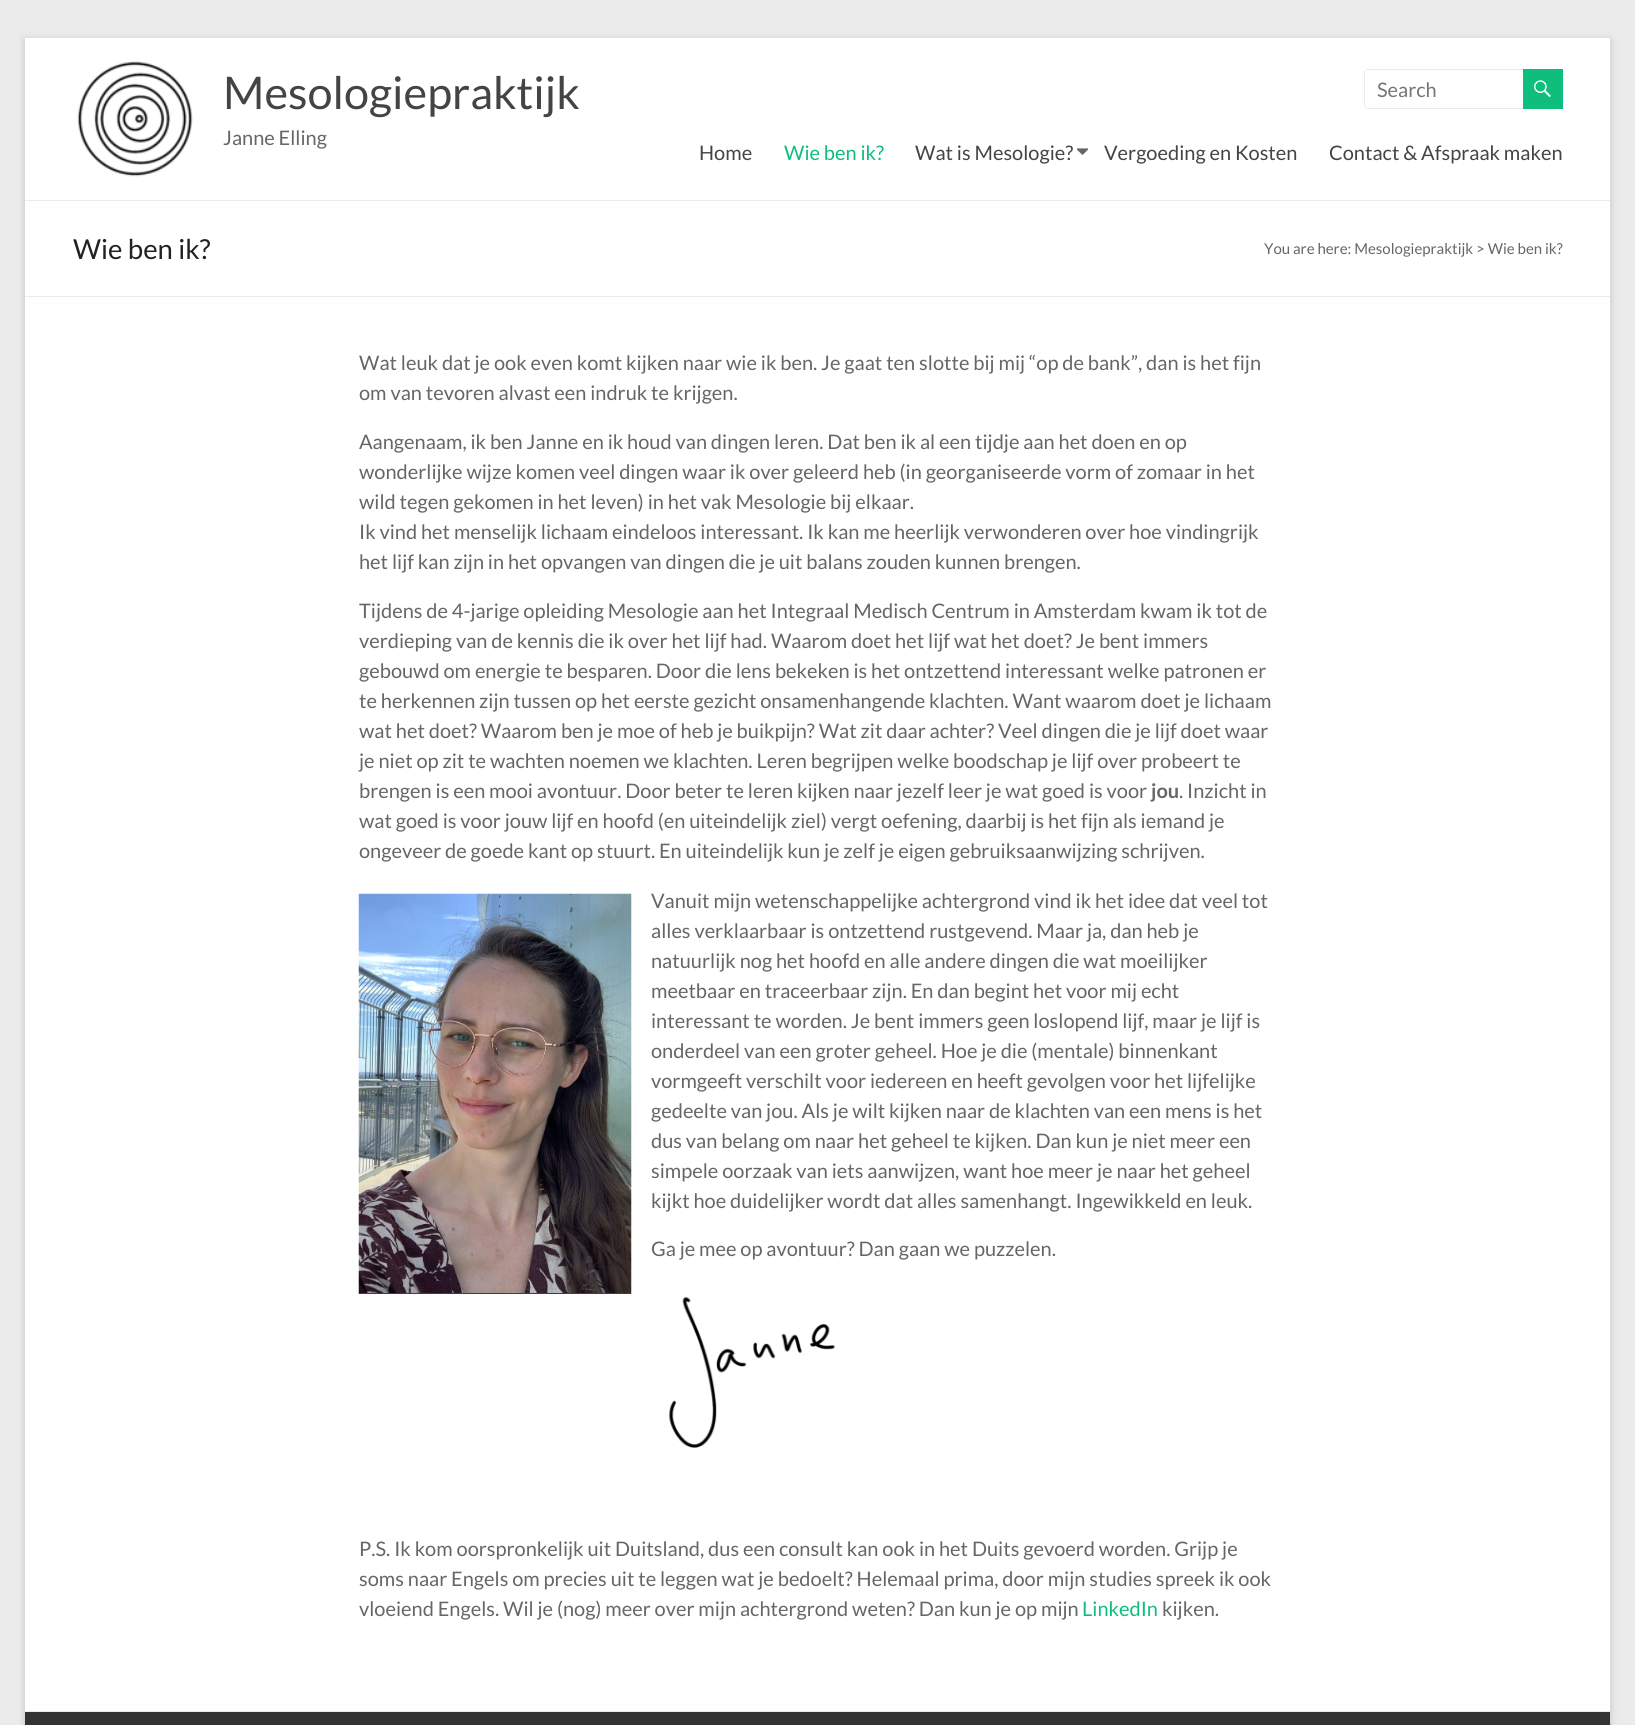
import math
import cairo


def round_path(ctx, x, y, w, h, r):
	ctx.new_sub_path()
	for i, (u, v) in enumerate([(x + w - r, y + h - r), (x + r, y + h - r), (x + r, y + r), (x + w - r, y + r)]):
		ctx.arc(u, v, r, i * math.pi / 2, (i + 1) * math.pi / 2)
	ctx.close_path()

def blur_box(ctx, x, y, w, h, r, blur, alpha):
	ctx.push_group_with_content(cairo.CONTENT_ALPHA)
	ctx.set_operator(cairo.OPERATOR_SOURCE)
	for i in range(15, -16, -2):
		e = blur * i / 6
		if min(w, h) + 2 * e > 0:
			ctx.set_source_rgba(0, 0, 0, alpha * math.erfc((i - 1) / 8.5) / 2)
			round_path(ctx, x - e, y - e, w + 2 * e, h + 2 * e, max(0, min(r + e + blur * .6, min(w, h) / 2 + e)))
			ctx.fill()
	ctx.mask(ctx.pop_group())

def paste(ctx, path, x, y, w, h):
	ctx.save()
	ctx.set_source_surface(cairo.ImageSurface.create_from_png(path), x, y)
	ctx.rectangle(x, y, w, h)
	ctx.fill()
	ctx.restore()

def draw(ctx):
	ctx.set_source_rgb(0.918, 0.918, 0.918)
	ctx.paint()
	ctx.set_source_rgb(0.392, 0.392, 0.392)
	blur_box(ctx, 25, 40, 1585, 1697, 0, 4, 0.3)
	ctx.set_source_rgb(1, 1, 1)
	ctx.rectangle(25, 38, 1585, 1673)
	ctx.fill()
	ctx.set_source_rgb(0.918, 0.918, 0.918)
	ctx.rectangle(25, 200, 1585, 1)
	ctx.fill()
	paste(ctx, 'media/1.png', 77, 61, 116, 116)
	ctx.select_font_face('Lato')
	ctx.set_font_size(45)
	ctx.set_source_rgb(0.267, 0.267, 0.267)
	ctx.move_to(223, 109)
	ctx.show_text('Mesologiepraktijk')
	ctx.set_font_size(20)
	ctx.set_source_rgb(0.4, 0.4, 0.4)
	ctx.move_to(223, 145)
	ctx.show_text('Janne Elling')
	round_path(ctx, 1364.5, 69.5, 161, 39, 3.5)
	ctx.set_source_rgb(0.918, 0.918, 0.918)
	ctx.set_line_width(1)
	ctx.stroke()
	ctx.set_source_rgb(0.459, 0.459, 0.459)
	ctx.move_to(1377, 97)
	ctx.show_text('Search')
	ctx.set_source_rgb(0.059, 0.745, 0.486)
	ctx.rectangle(1523, 69, 40, 40)
	ctx.fill()
	paste(ctx, 'media/2.png', 1534, 80, 17, 18)
	ctx.set_source_rgb(0.267, 0.267, 0.267)
	ctx.move_to(699, 160)
	ctx.show_text('Home')
	ctx.set_source_rgb(0.059, 0.745, 0.486)
	ctx.move_to(784, 160)
	ctx.show_text('Wie ben ik?')
	ctx.set_source_rgb(0.267, 0.267, 0.267)
	ctx.move_to(915, 160)
	ctx.show_text('Wat is Mesologie?')
	paste(ctx, 'media/3.png', 1076, 148, 13, 7)
	ctx.move_to(1104, 160)
	ctx.show_text('Vergoeding en Kosten')
	ctx.move_to(1329, 160)
	ctx.show_text('Contact & Afspraak maken')
	ctx.set_source_rgb(0.918, 0.918, 0.918)
	ctx.rectangle(25, 296, 1585, 1)
	ctx.fill()
	ctx.set_font_size(27.5)
	ctx.set_source_rgb(0.133, 0.133, 0.133)
	ctx.move_to(73, 259)
	ctx.show_text('Wie ben ik?')
	ctx.set_font_size(15)
	ctx.set_source_rgb(0.4, 0.4, 0.4)
	ctx.move_to(1264, 254)
	ctx.show_text('You are here: Mesologiepraktijk > Wie ben ik?')
	ctx.set_font_size(20)
	for x, y, s in [
		(359, 370, 'Wat leuk dat je ook even komt kijken naar wie ik ben. Je gaat ten slotte bij mij “op de bank”, dan is het fijn'),
		(359, 400, 'om van tevoren alvast een indruk te krijgen.'),
		(359, 449, 'Aangenaam, ik ben Janne en ik houd van dingen leren. Dat ben ik al een tijdje aan het doen en op'),
		(359, 479, 'wonderlijke wijze komen veel dingen waar ik over geleerd heb (in georganiseerde vorm of zomaar in het'),
		(359, 509, 'wild tegen gekomen in het leven) in het vak Mesologie bij elkaar.'),
		(359, 539, 'Ik vind het menselijk lichaam eindeloos interessant. Ik kan me heerlijk verwonderen over hoe vindingrijk'),
		(359, 569, 'het lijf kan zijn in het opvangen van dingen die je uit balans zouden kunnen brengen.'),
		(359, 618, 'Tijdens de 4-jarige opleiding Mesologie aan het Integraal Medisch Centrum in Amsterdam kwam ik tot de'),
		(359, 648, 'verdieping van de kennis die ik over het lijf had. Waarom doet het lijf wat het doet? Je bent immers'),
		(359, 678, 'gebouwd om energie te besparen. Door die lens bekeken is het ontzettend interessant welke patronen er'),
		(359, 708, 'te herkennen zijn tussen op het eerste gezicht onsamenhangende klachten. Want waarom doet je lichaam'),
		(359, 738, 'wat het doet? Waarom ben je moe of heb je buikpijn? Wat zit daar achter? Veel dingen die je lijf doet waar'),
		(359, 768, 'je niet op zit te wachten noemen we klachten. Leren begrijpen welke boodschap je lijf over probeert te'),
		(359, 798, 'brengen is een mooi avontuur. Door beter te leren kijken naar jezelf leer je wat goed is voor'),
	]:
		ctx.move_to(x, y)
		ctx.show_text(s)
	ctx.select_font_face('Lato', cairo.FONT_SLANT_NORMAL, cairo.FONT_WEIGHT_BOLD)
	ctx.move_to(1151, 798)
	ctx.show_text('jou')
	ctx.select_font_face('Lato')
	for x, y, s in [
		(1179, 798, '. Inzicht in'),
		(359, 828, 'wat goed is voor jouw lijf en hoofd (en uiteindelijk ziel) vergt oefening, daarbij is het fijn als iemand je'),
		(359, 858, 'ongeveer de goede kant op stuurt. En uiteindelijk kun je zelf je eigen gebruiksaanwijzing schrijven.'),
	]:
		ctx.move_to(x, y)
		ctx.show_text(s)
	paste(ctx, 'media/4.png', 358, 893, 274, 401)
	for x, y, s in [
		(651, 908, 'Vanuit mijn wetenschappelijke achtergrond vind ik het idee dat veel tot'),
		(651, 938, 'alles verklaarbaar is ontzettend rustgevend. Maar ja, dan heb je'),
		(651, 968, 'natuurlijk nog het hoofd en alle andere dingen die wat moeilijker'),
		(651, 998, 'meetbaar en traceerbaar zijn. En dan begint het voor mij echt'),
		(651, 1028, 'interessant te worden. Je bent immers geen loslopend lijf, maar je lijf is'),
		(651, 1058, 'onderdeel van een groter geheel. Hoe je die (mentale) binnenkant'),
		(651, 1088, 'vormgeeft verschilt voor iedereen en heeft gevolgen voor het lijfelijke'),
		(651, 1118, 'gedeelte van jou. Als je wilt kijken naar de klachten van een mens is het'),
		(651, 1148, 'dus van belang om naar het geheel te kijken. Dan kun je niet meer een'),
		(651, 1178, 'simpele oorzaak van iets aanwijzen, want hoe meer je naar het geheel'),
		(651, 1208, 'kijkt hoe duidelijker wordt dat alles samenhangt. Ingewikkeld en leuk.'),
		(651, 1256, 'Ga je mee op avontuur? Dan gaan we puzzelen.'),
	]:
		ctx.move_to(x, y)
		ctx.show_text(s)
	paste(ctx, 'media/5.png', 669, 1296, 167, 152)
	for x, y, s in [
		(359, 1556, 'P.S. Ik kom oorspronkelijk uit Duitsland, dus een consult kan ook in het Duits gevoerd worden. Grijp je'),
		(359, 1586, 'soms naar Engels om precies uit te leggen wat je bedoelt? Helemaal prima, door mijn studies spreek ik ook'),
		(359, 1616, 'vloeiend Engels. Wil je (nog) meer over mijn achtergrond weten? Dan kun je op mijn'),
	]:
		ctx.move_to(x, y)
		ctx.show_text(s)
	ctx.set_source_rgb(0.059, 0.745, 0.486)
	ctx.move_to(1082, 1616)
	ctx.show_text('LinkedIn')
	ctx.set_source_rgb(0.4, 0.4, 0.4)
	ctx.move_to(1162, 1616)
	ctx.show_text('kijken.')
	ctx.set_source_rgb(0.2, 0.2, 0.2)
	ctx.rectangle(25, 1712, 1585, 13)
	ctx.fill()
	ctx.set_source_rgb(0.918, 0.918, 0.918)
	ctx.rectangle(25, 1711, 1585, 1)
	ctx.fill()


surface = cairo.ImageSurface(cairo.FORMAT_RGB24, 1635, 1725)
ctx = cairo.Context(surface)
options = cairo.FontOptions()
options.set_hint_metrics(cairo.HINT_METRICS_OFF)
options.set_hint_style(cairo.HINT_STYLE_NONE)
ctx.set_font_options(options)
ctx.set_miter_limit(4)
draw(ctx)
surface.write_to_png('image.png')
